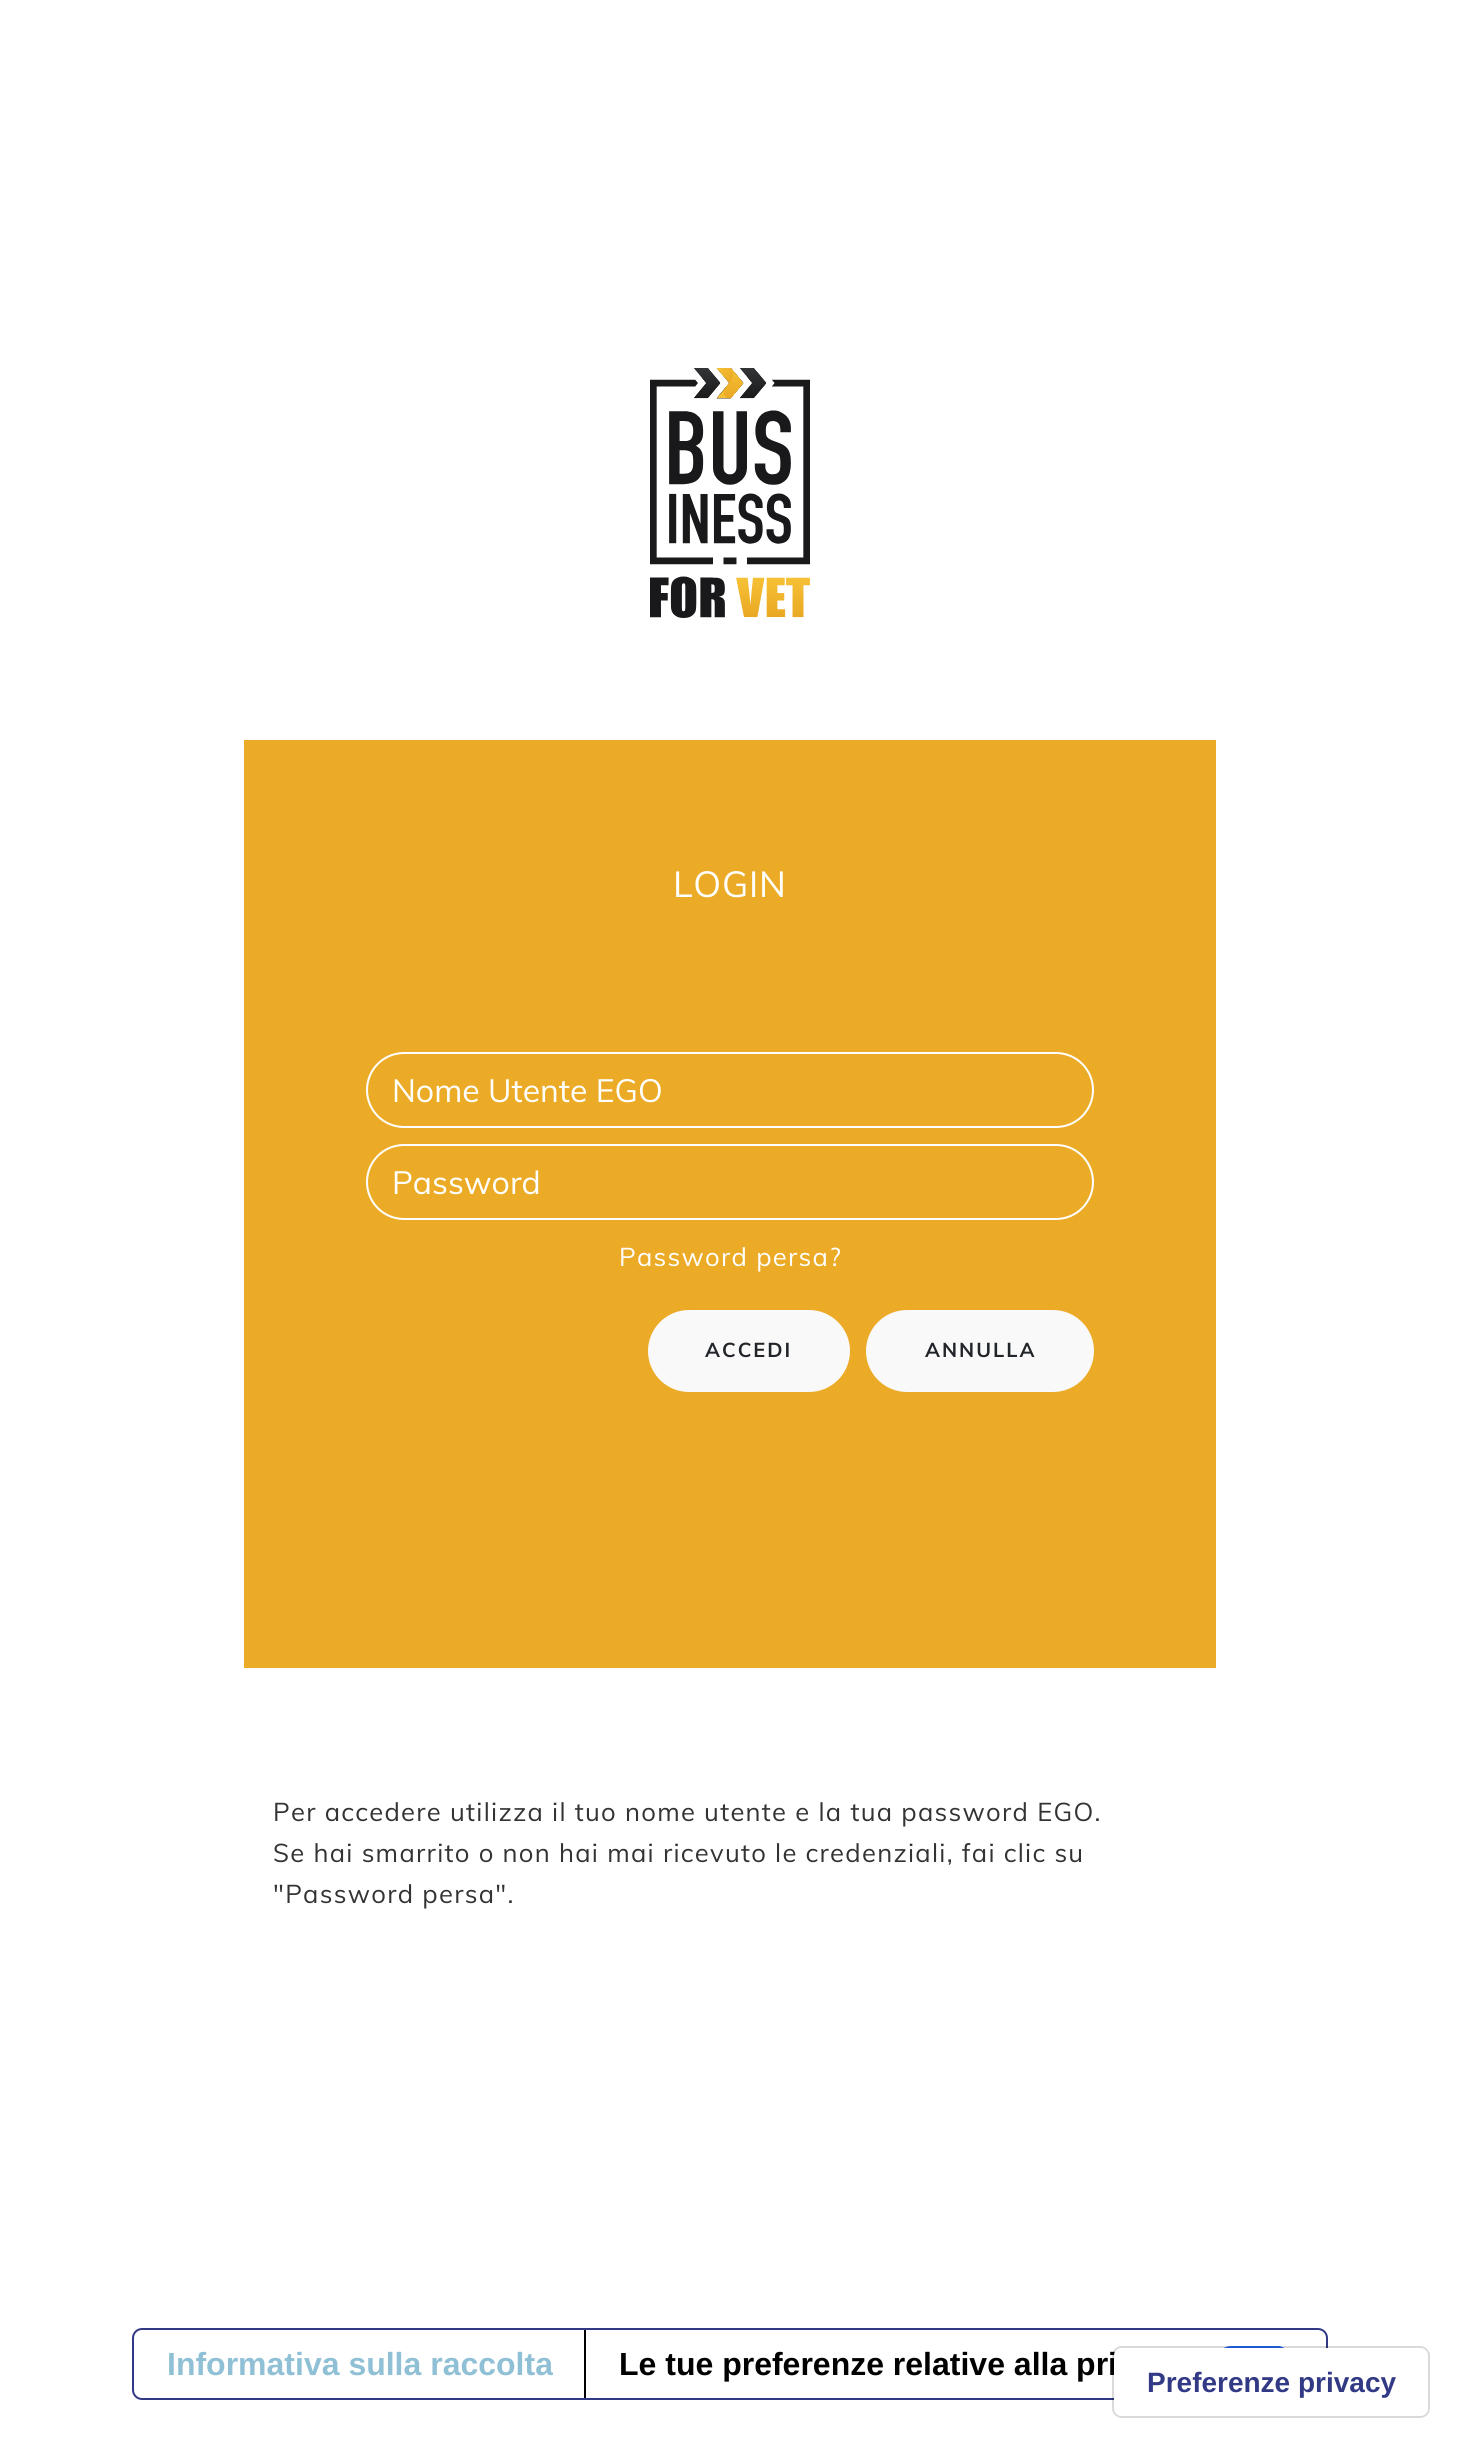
import math
import cairo


def write_spaced(ctx, x, y, s, letter, word):
	ctx.move_to(x, y)
	for ch in s:
		ctx.show_text(ch)
		ctx.rel_move_to(letter + word * (ch == ' '), 0)

def round_path(ctx, x, y, w, h, r):
	ctx.new_sub_path()
	for i, (u, v) in enumerate([(x + w - r, y + h - r), (x + r, y + h - r), (x + r, y + r), (x + w - r, y + r)]):
		ctx.arc(u, v, r, i * math.pi / 2, (i + 1) * math.pi / 2)
	ctx.close_path()

def paste(ctx, path, x, y, w, h):
	ctx.save()
	ctx.set_source_surface(cairo.ImageSurface.create_from_png(path), x, y)
	ctx.rectangle(x, y, w, h)
	ctx.fill()
	ctx.restore()

def draw(ctx):
	ctx.set_source_rgb(1, 1, 1)
	ctx.paint()
	paste(ctx, 'media/1.png', 650, 368, 160, 250)
	ctx.set_source_rgb(0.922, 0.671, 0.149)
	ctx.rectangle(244, 740, 972, 928)
	ctx.fill()
	ctx.select_font_face('Muli')
	ctx.set_font_size(36)
	ctx.set_source_rgb(1, 1, 1)
	write_spaced(ctx, 673, 897, 'LOGIN', 0.75, 0)
	round_path(ctx, 367, 1053, 726, 74, 37)
	ctx.stroke()
	ctx.set_font_size(32)
	ctx.move_to(392, 1102)
	ctx.show_text('Nome Utente EGO')
	round_path(ctx, 367, 1145, 726, 74, 37)
	ctx.stroke()
	ctx.move_to(392, 1194)
	ctx.show_text('Password')
	ctx.set_font_size(25.6)
	write_spaced(ctx, 619, 1266, 'Password persa?', 1.28, 0)
	ctx.set_source_rgb(0.973, 0.976, 0.98)
	round_path(ctx, 649, 1311, 200, 80, 40)
	ctx.fill_preserve()
	ctx.stroke()
	ctx.select_font_face('Muli', cairo.FONT_SLANT_NORMAL, cairo.FONT_WEIGHT_BOLD)
	ctx.set_font_size(20)
	ctx.set_source_rgb(0.129, 0.145, 0.161)
	write_spaced(ctx, 705, 1357, 'ACCEDI', 2, 0)
	ctx.set_source_rgb(0.973, 0.976, 0.98)
	round_path(ctx, 867, 1311, 226, 80, 40)
	ctx.fill_preserve()
	ctx.stroke()
	ctx.set_source_rgb(0.129, 0.145, 0.161)
	write_spaced(ctx, 925, 1357, 'ANNULLA', 2, 0)
	ctx.select_font_face('Muli')
	ctx.set_font_size(25.6)
	ctx.set_source_rgb(0.2, 0.2, 0.2)
	for x, y, s in [
		(273, 1821, 'Per accedere utilizza il tuo nome utente e la tua password EGO.'),
		(273, 1862, 'Se hai smarrito o non hai mai ricevuto le credenziali, fai clic su'),
		(273, 1903, '"Password persa".'),
	]:
		write_spaced(ctx, x, y, s, 1.28, 0)
	round_path(ctx, 133, 2329, 1194, 70, 9)
	ctx.set_source_rgb(0.2, 0.227, 0.522)
	ctx.stroke()
	ctx.select_font_face('Liberation Sans', cairo.FONT_SLANT_NORMAL, cairo.FONT_WEIGHT_BOLD)
	ctx.set_font_size(32)
	ctx.set_source_rgb(0.561, 0.753, 0.835)
	ctx.move_to(167, 2375)
	ctx.show_text('Informativa sulla raccolta')
	ctx.set_source_rgb(0, 0, 0)
	ctx.rectangle(584, 2330, 2, 68)
	ctx.fill()
	paste(ctx, 'media/2.png', 1224, 2346, 61, 2)
	ctx.move_to(619, 2375)
	ctx.show_text('Le tue preferenze relative alla pri')
	round_path(ctx, 1113, 2347, 316, 70, 9)
	ctx.set_source_rgba(0, 0, 0, 0.15)
	ctx.stroke()
	ctx.set_source_rgb(1, 1, 1)
	round_path(ctx, 1114, 2348, 314, 68, 8)
	ctx.fill()
	ctx.set_font_size(28)
	ctx.set_source_rgb(0.2, 0.227, 0.522)
	ctx.move_to(1147, 2392)
	ctx.show_text('Preferenze privacy')


surface = cairo.ImageSurface(cairo.FORMAT_RGB24, 1459, 2448)
ctx = cairo.Context(surface)
options = cairo.FontOptions()
options.set_hint_metrics(cairo.HINT_METRICS_OFF)
options.set_hint_style(cairo.HINT_STYLE_NONE)
ctx.set_font_options(options)
ctx.set_miter_limit(4)
draw(ctx)
surface.write_to_png('image.png')
